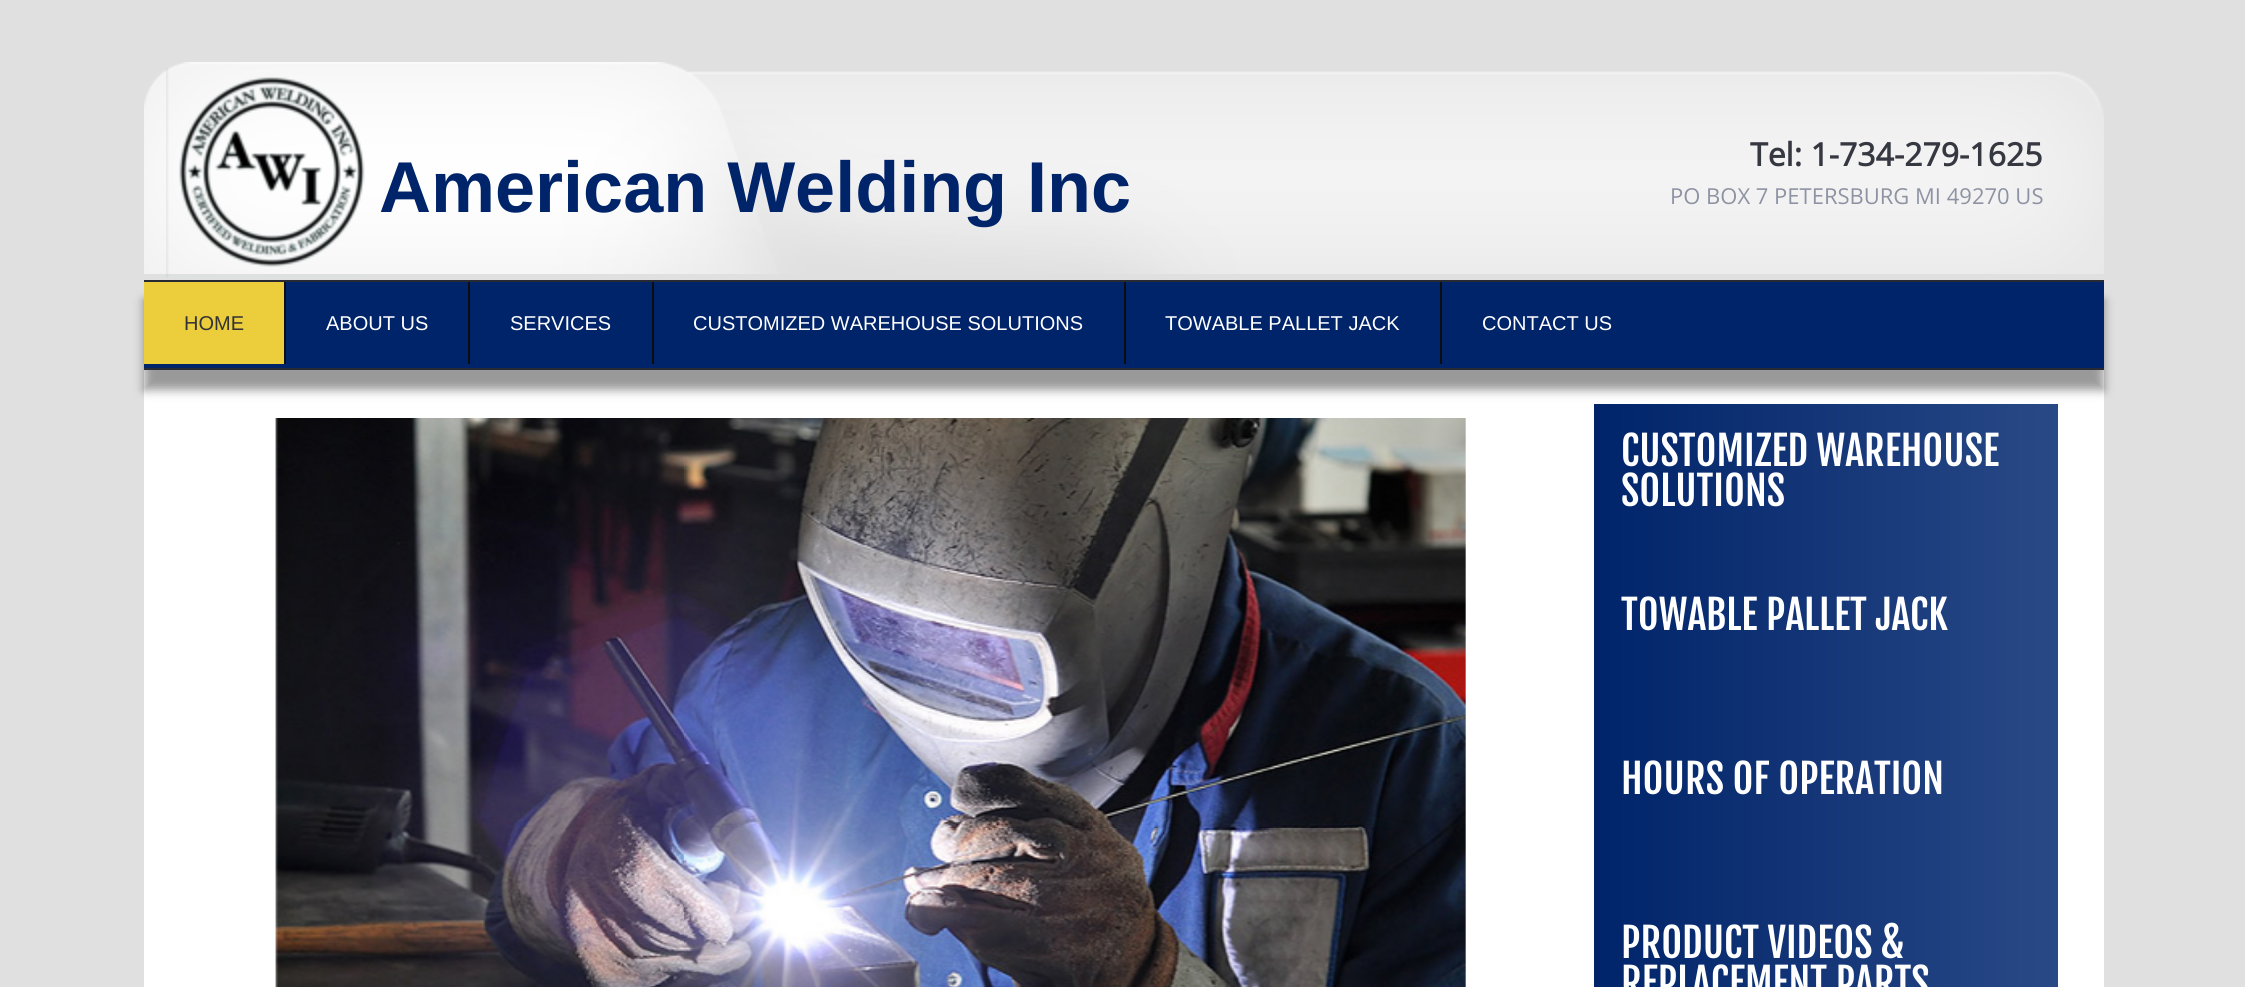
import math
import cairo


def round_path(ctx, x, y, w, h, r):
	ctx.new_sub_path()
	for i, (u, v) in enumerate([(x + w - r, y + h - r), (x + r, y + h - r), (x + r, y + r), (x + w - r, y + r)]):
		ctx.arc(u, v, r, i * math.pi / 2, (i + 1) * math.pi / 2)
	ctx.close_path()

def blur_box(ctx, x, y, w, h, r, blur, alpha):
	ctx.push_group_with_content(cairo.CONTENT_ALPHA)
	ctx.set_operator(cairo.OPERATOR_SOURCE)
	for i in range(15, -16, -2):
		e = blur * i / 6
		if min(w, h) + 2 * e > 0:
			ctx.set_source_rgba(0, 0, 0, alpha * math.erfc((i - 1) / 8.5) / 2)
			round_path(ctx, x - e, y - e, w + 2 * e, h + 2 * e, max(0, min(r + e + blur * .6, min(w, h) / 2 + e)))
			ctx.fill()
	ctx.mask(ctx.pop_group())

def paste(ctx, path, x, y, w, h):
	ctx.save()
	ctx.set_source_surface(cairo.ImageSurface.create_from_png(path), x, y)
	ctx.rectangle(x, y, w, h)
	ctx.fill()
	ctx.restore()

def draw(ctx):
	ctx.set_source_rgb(0.878, 0.878, 0.878)
	ctx.paint()
	ctx.set_source_rgb(1, 1, 1)
	ctx.rectangle(144, 370, 1960, 617)
	ctx.fill()
	paste(ctx, 'media/1.png', 144, 62, 1960, 212)
	paste(ctx, 'media/2.png', 166, 68, 199, 210)
	ctx.select_font_face('Liberation Sans', cairo.FONT_SLANT_NORMAL, cairo.FONT_WEIGHT_BOLD)
	ctx.set_font_size(72)
	ctx.set_source_rgb(0, 0.141, 0.416)
	ctx.move_to(379, 212)
	ctx.show_text('American Welding Inc')
	ctx.select_font_face('Open Sans', cairo.FONT_SLANT_NORMAL, cairo.FONT_WEIGHT_BOLD)
	ctx.set_font_size(32)
	ctx.set_source_rgb(0.208, 0.216, 0.255)
	ctx.move_to(1750, 166)
	ctx.show_text('Tel: 1-734-279-1625')
	ctx.select_font_face('Open Sans')
	ctx.set_font_size(22)
	ctx.set_source_rgb(0.553, 0.576, 0.639)
	ctx.move_to(1670, 204)
	ctx.show_text('PO BOX 7 PETERSBURG MI 49270 US')
	gradient = cairo.LinearGradient(1594, 486, 2058, 486)
	gradient.add_color_stop_rgba(0, 0, 0.141, 0.416, 1)
	gradient.add_color_stop_rgba(1, 0.161, 0.286, 0.525, 1)
	ctx.set_source(gradient)
	ctx.rectangle(1594, 404, 464, 164)
	ctx.fill()
	ctx.set_source_rgb(0, 0, 0)
	blur_box(ctx, 144, 300, 1960, 90, 0, 5, 0.4)
	ctx.set_source_rgb(0, 0.141, 0.416)
	ctx.rectangle(144, 282, 1960, 86)
	ctx.fill()
	ctx.set_source_rgb(0.157, 0.165, 0.2)
	ctx.rectangle(144, 280, 1960, 2)
	ctx.rectangle(144, 368, 1960, 2)
	ctx.fill()
	ctx.set_source_rgb(0.051, 0.051, 0.063)
	ctx.rectangle(284, 282, 2, 82)
	ctx.fill()
	ctx.set_source_rgb(0.925, 0.808, 0.235)
	ctx.rectangle(144, 282, 140, 82)
	ctx.fill()
	ctx.select_font_face('Liberation Sans')
	ctx.set_font_size(20)
	ctx.set_source_rgb(0.2, 0.2, 0.2)
	ctx.move_to(184, 330)
	ctx.show_text('HOME')
	ctx.set_source_rgb(0.051, 0.051, 0.063)
	ctx.rectangle(468, 282, 2, 82)
	ctx.fill()
	ctx.set_source_rgb(1, 1, 1)
	ctx.move_to(326, 330)
	ctx.show_text('ABOUT US')
	ctx.set_source_rgb(0.051, 0.051, 0.063)
	ctx.rectangle(652, 282, 2, 82)
	ctx.fill()
	ctx.set_source_rgb(1, 1, 1)
	ctx.move_to(510, 330)
	ctx.show_text('SERVICES')
	ctx.set_source_rgb(0.051, 0.051, 0.063)
	ctx.rectangle(1124, 282, 2, 82)
	ctx.fill()
	ctx.set_source_rgb(1, 1, 1)
	ctx.move_to(693, 330)
	ctx.show_text('CUSTOMIZED WAREHOUSE SOLUTIONS')
	ctx.set_source_rgb(0.051, 0.051, 0.063)
	ctx.rectangle(1440, 282, 2, 82)
	ctx.fill()
	ctx.set_source_rgb(1, 1, 1)
	ctx.move_to(1165, 330)
	ctx.show_text('TOWABLE PALLET JACK')
	ctx.move_to(1482, 330)
	ctx.show_text('CONTACT US')
	paste(ctx, 'media/3.png', 275, 418, 1191, 569)
	ctx.select_font_face('Fjalla One')
	ctx.set_font_size(40)
	ctx.move_to(1621, 466)
	ctx.show_text('CUSTOMIZED WAREHOUSE')
	ctx.move_to(1621, 506)
	ctx.show_text('SOLUTIONS')
	gradient = cairo.LinearGradient(1594, 650, 2058, 650)
	gradient.add_color_stop_rgba(0, 0, 0.141, 0.416, 1)
	gradient.add_color_stop_rgba(1, 0.161, 0.286, 0.525, 1)
	ctx.set_source(gradient)
	ctx.rectangle(1594, 568, 464, 164)
	ctx.fill()
	ctx.set_source_rgb(1, 1, 1)
	ctx.move_to(1621, 630)
	ctx.show_text('TOWABLE PALLET JACK')
	gradient = cairo.LinearGradient(1594, 814, 2058, 814)
	gradient.add_color_stop_rgba(0, 0, 0.141, 0.416, 1)
	gradient.add_color_stop_rgba(1, 0.161, 0.286, 0.525, 1)
	ctx.set_source(gradient)
	ctx.rectangle(1594, 732, 464, 164)
	ctx.fill()
	ctx.set_source_rgb(1, 1, 1)
	ctx.move_to(1621, 794)
	ctx.show_text('HOURS OF OPERATION')
	gradient = cairo.LinearGradient(1594, 978, 2058, 978)
	gradient.add_color_stop_rgba(0, 0, 0.141, 0.416, 1)
	gradient.add_color_stop_rgba(1, 0.161, 0.286, 0.525, 1)
	ctx.set_source(gradient)
	ctx.rectangle(1594, 896, 464, 91)
	ctx.fill()
	ctx.set_source_rgb(1, 1, 1)
	ctx.move_to(1621, 958)
	ctx.show_text('PRODUCT VIDEOS &')
	ctx.move_to(1621, 998)
	ctx.show_text('REPLACEMENT PARTS')


surface = cairo.ImageSurface(cairo.FORMAT_RGB24, 2245, 987)
ctx = cairo.Context(surface)
options = cairo.FontOptions()
options.set_hint_metrics(cairo.HINT_METRICS_OFF)
options.set_hint_style(cairo.HINT_STYLE_NONE)
ctx.set_font_options(options)
ctx.set_miter_limit(4)
draw(ctx)
surface.write_to_png('image.png')
